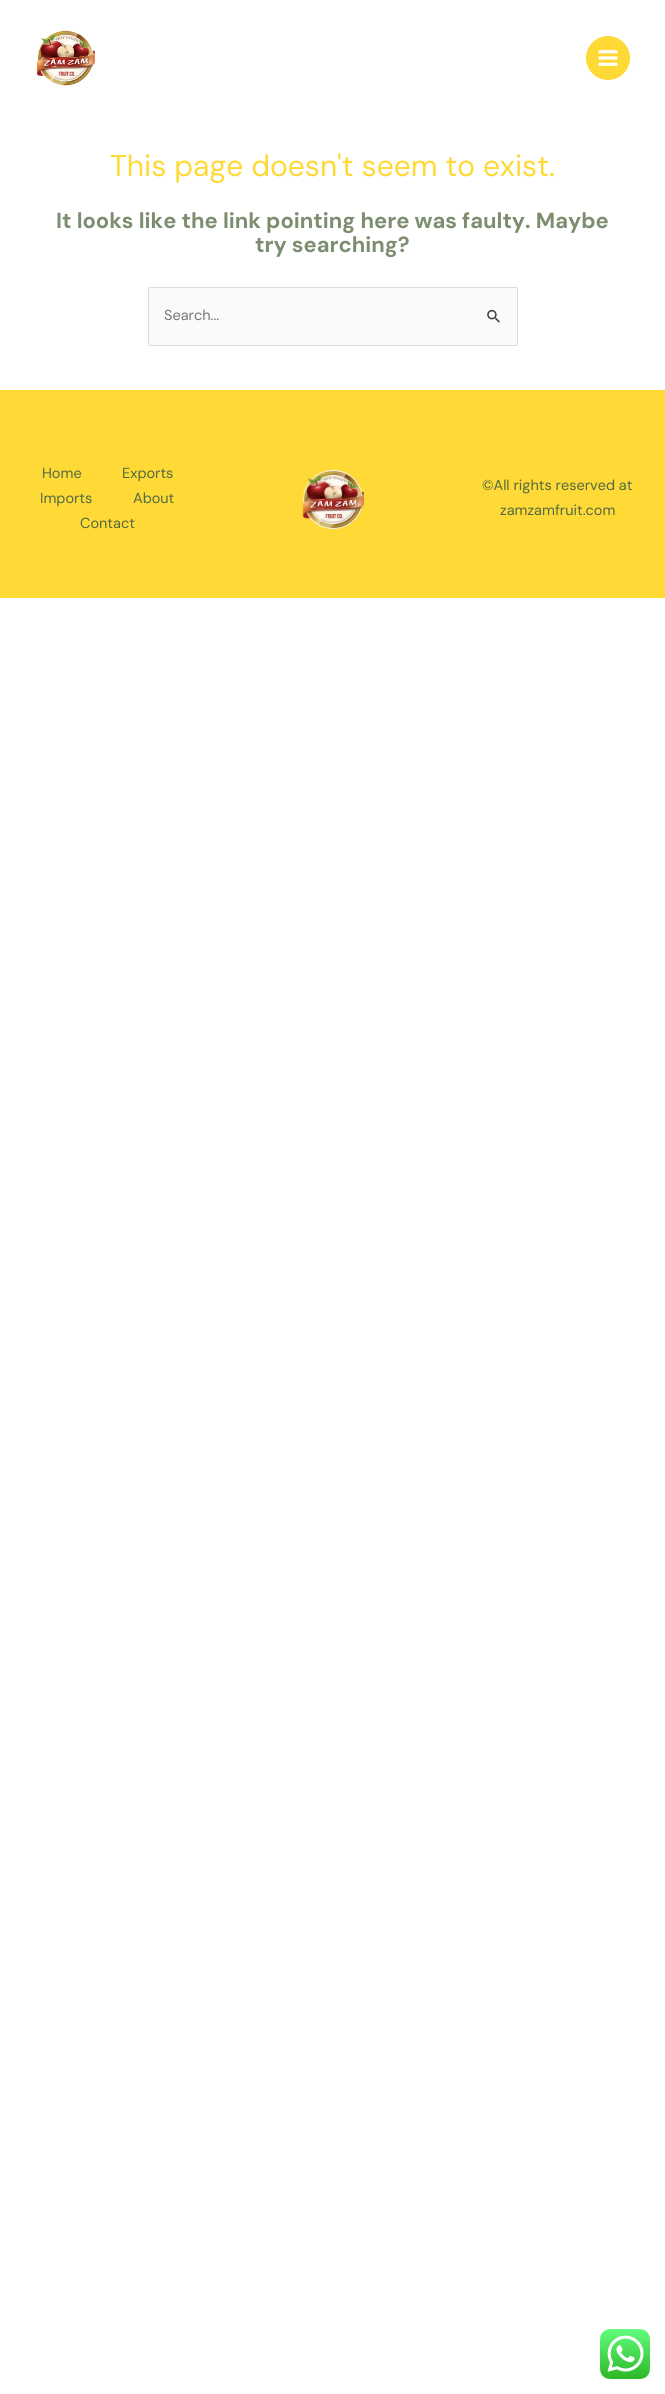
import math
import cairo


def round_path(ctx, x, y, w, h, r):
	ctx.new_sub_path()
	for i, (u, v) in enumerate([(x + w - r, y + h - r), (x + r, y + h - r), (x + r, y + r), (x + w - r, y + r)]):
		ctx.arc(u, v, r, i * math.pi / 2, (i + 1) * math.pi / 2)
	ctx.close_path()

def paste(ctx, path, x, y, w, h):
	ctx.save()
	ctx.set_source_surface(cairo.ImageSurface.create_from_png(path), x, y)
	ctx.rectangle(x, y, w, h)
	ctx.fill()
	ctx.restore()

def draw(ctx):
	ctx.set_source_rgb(1, 1, 1)
	ctx.paint()
	paste(ctx, 'media/1.png', 37, 30, 58, 56)
	ctx.set_source_rgb(1, 0.851, 0.212)
	ctx.arc(608, 58, 22, 0, 2 * math.pi)
	ctx.fill()
	paste(ctx, 'media/2.png', 598, 50, 20, 16)
	ctx.select_font_face('DM Sans')
	ctx.set_font_size(30)
	ctx.move_to(110, 176)
	ctx.show_text('This page doesn\'t seem to exist.')
	ctx.select_font_face('DM Sans', cairo.FONT_SLANT_NORMAL, cairo.FONT_WEIGHT_BOLD)
	ctx.set_font_size(21.9)
	ctx.set_source_rgb(0.49, 0.557, 0.439)
	ctx.move_to(56, 228)
	ctx.show_text('It looks like the link pointing here was faulty. Maybe')
	ctx.move_to(255, 252)
	ctx.show_text('try searching?')
	ctx.set_source_rgb(0.98, 0.98, 0.98)
	round_path(ctx, 148.5, 287.5, 369, 58, 1.5)
	ctx.fill_preserve()
	ctx.set_source_rgb(0.867, 0.867, 0.867)
	ctx.set_line_width(1)
	ctx.stroke()
	ctx.select_font_face('DM Sans')
	ctx.set_font_size(14.5)
	ctx.set_source_rgb(0.459, 0.459, 0.459)
	ctx.move_to(164, 320)
	ctx.show_text('Search...')
	paste(ctx, 'media/3.png', 487, 309, 13, 14)
	ctx.set_source_rgb(1, 0.851, 0.212)
	ctx.rectangle(0, 390, 665, 208)
	ctx.fill()
	ctx.set_source_rgb(0.325, 0.412, 0.259)
	for x, y, s in [
		(42, 478, 'Home'),
		(122, 478, 'Exports'),
		(40, 503, 'Imports'),
		(133, 503, 'About'),
		(80, 528, 'Contact'),
	]:
		ctx.move_to(x, y)
		ctx.show_text(s)
	paste(ctx, 'media/4.png', 302, 470, 62, 59)
	ctx.move_to(482, 490)
	ctx.show_text('©All rights reserved at')
	ctx.move_to(500, 515)
	ctx.show_text('zamzamfruit.com')
	paste(ctx, 'media/5.png', 600, 2329, 50, 50)


surface = cairo.ImageSurface(cairo.FORMAT_RGB24, 665, 2394)
ctx = cairo.Context(surface)
options = cairo.FontOptions()
options.set_hint_metrics(cairo.HINT_METRICS_OFF)
options.set_hint_style(cairo.HINT_STYLE_NONE)
ctx.set_font_options(options)
ctx.set_miter_limit(4)
draw(ctx)
surface.write_to_png('image.png')
